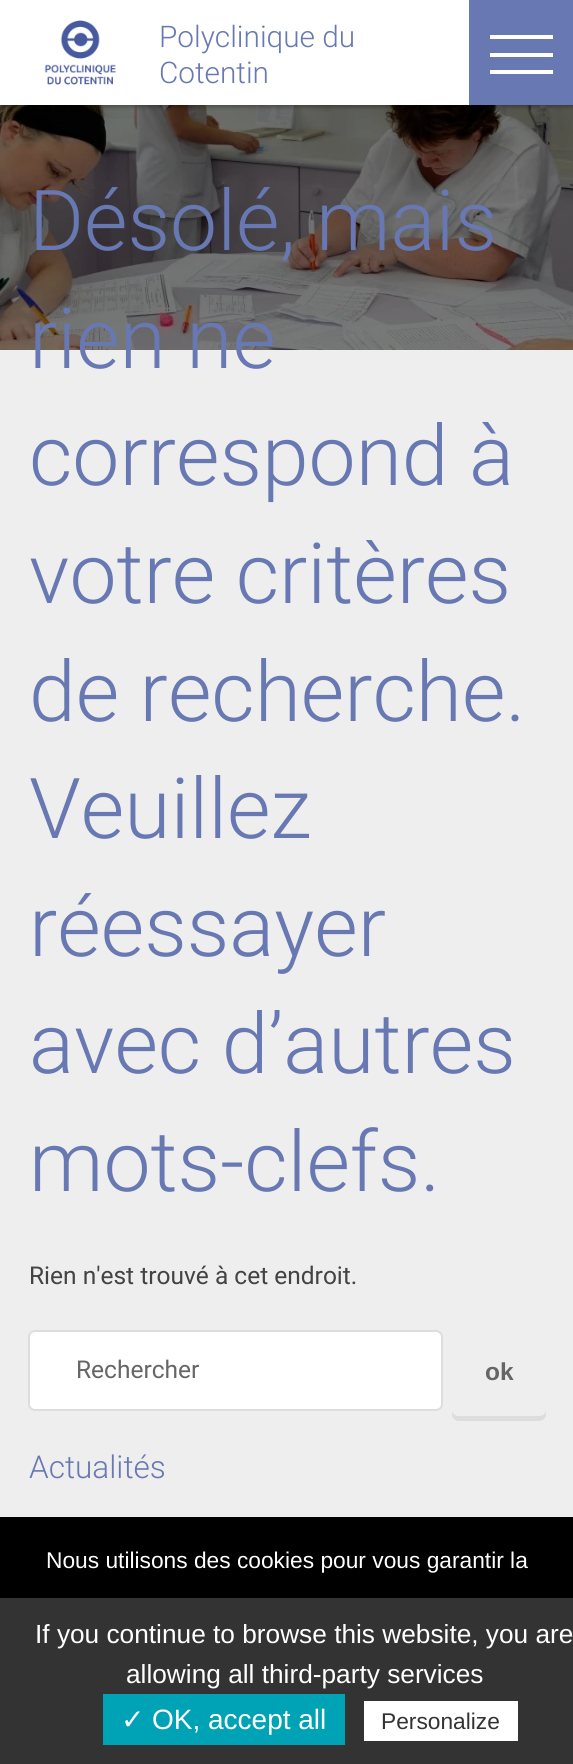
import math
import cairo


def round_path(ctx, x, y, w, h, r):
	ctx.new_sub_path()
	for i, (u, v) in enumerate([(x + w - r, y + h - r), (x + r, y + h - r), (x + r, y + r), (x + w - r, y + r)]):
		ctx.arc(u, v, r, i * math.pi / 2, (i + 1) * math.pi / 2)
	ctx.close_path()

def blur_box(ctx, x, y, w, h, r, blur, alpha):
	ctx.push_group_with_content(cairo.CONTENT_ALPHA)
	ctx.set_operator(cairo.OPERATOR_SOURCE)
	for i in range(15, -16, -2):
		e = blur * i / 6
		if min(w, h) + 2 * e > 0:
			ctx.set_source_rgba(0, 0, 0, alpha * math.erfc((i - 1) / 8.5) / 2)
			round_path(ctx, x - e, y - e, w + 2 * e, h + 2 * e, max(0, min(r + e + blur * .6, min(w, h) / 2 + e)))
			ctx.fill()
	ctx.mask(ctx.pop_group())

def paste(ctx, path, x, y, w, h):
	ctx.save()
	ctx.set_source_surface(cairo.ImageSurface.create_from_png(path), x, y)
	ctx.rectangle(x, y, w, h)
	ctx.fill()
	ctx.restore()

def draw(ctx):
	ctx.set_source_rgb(0.933, 0.933, 0.933)
	ctx.paint()
	paste(ctx, 'media/2.png', 0, 105, 573, 245)
	ctx.set_source_rgb(0, 0, 0)
	blur_box(ctx, 0, 2, 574, 105, 0, 2, 0.3)
	ctx.set_source_rgb(1, 1, 1)
	ctx.rectangle(0, 0, 469, 105)
	ctx.fill()
	paste(ctx, 'media/1.png', 44, 20, 73, 65)
	ctx.select_font_face('Roboto Light')
	ctx.set_font_size(29.75)
	ctx.set_source_rgb(0.404, 0.471, 0.698)
	ctx.move_to(159, 47)
	ctx.show_text('Polyclinique du')
	ctx.move_to(159, 83)
	ctx.show_text('Cotentin')
	ctx.rectangle(469, 0, 104, 105)
	ctx.fill()
	ctx.set_source_rgb(1, 1, 1)
	ctx.rectangle(490, 35, 63, 4)
	ctx.rectangle(490, 53, 63, 4)
	ctx.rectangle(490, 70, 63, 4)
	ctx.fill()
	ctx.set_font_size(84)
	ctx.set_source_rgb(0.404, 0.471, 0.698)
	for x, y, s in [
		(29, 250, 'Désolé, mais'),
		(29, 368, 'rien ne'),
		(29, 485, 'correspond à'),
		(29, 603, 'votre critères'),
		(29, 721, 'de recherche.'),
		(29, 838, 'Veuillez'),
		(29, 956, 'réessayer'),
		(29, 1073, 'avec d’autres'),
		(29, 1191, 'mots-clefs.'),
	]:
		ctx.move_to(x, y)
		ctx.show_text(s)
	ctx.select_font_face('Roboto')
	ctx.set_font_size(24.5)
	ctx.set_source_rgb(0.263, 0.263, 0.263)
	ctx.move_to(29, 1284)
	ctx.show_text('Rien n\'est trouvé à cet endroit.')
	ctx.set_source_rgb(1, 1, 1)
	round_path(ctx, 29, 1331, 413, 79, 6)
	ctx.fill_preserve()
	ctx.set_source_rgb(0.867, 0.867, 0.867)
	ctx.stroke()
	ctx.set_source_rgb(0.4, 0.4, 0.4)
	ctx.move_to(76, 1378)
	ctx.show_text('Rechercher')
	ctx.set_source_rgb(0.867, 0.867, 0.867)
	ctx.new_path()
	ctx.move_to(452, 1411)
	ctx.line_to(452, 1414)
	ctx.curve_to(452, 1418, 455, 1421, 459, 1421)
	ctx.line_to(539, 1421)
	ctx.curve_to(543, 1421, 546, 1418, 546, 1414)
	ctx.line_to(546, 1409)
	ctx.curve_to(546, 1413, 543, 1416, 539, 1416)
	ctx.line_to(458, 1416)
	ctx.curve_to(456, 1416, 453, 1414, 452, 1411)
	ctx.close_path()
	ctx.fill()
	ctx.set_source_rgb(0.933, 0.933, 0.933)
	round_path(ctx, 452, 1330, 94, 86, 7)
	ctx.fill()
	ctx.select_font_face('Liberation Sans', cairo.FONT_SLANT_NORMAL, cairo.FONT_WEIGHT_BOLD)
	ctx.set_source_rgb(0.4, 0.4, 0.4)
	ctx.move_to(485, 1380)
	ctx.show_text('ok')
	ctx.select_font_face('Roboto Light')
	ctx.set_font_size(31.5)
	ctx.set_source_rgb(0.404, 0.471, 0.698)
	ctx.move_to(29, 1478)
	ctx.show_text('Actualités')
	ctx.set_source_rgb(0, 0, 0)
	ctx.rectangle(0, 1517, 573, 81)
	ctx.fill()
	ctx.select_font_face('Liberation Sans')
	ctx.set_font_size(22.75)
	ctx.set_source_rgb(1, 1, 1)
	ctx.move_to(46, 1568)
	ctx.show_text('Nous utilisons des cookies pour vous garantir la')
	ctx.set_source_rgb(0.2, 0.2, 0.2)
	ctx.rectangle(0, 1598, 573, 166)
	ctx.fill()
	ctx.set_font_size(26.25)
	ctx.set_source_rgb(1, 1, 1)
	ctx.move_to(35, 1643)
	ctx.show_text('If you continue to browse this website, you are')
	ctx.move_to(126, 1683)
	ctx.show_text('allowing all third-party services')
	ctx.set_source_rgb(0, 0.635, 0.71)
	ctx.rectangle(103, 1694, 242, 51)
	ctx.fill()
	ctx.select_font_face('DejaVu Sans')
	ctx.set_font_size(28)
	ctx.set_source_rgb(1, 1, 1)
	ctx.move_to(121, 1729)
	ctx.show_text('✓')
	ctx.select_font_face('Liberation Sans')
	ctx.move_to(152, 1729)
	ctx.show_text('OK, accept all')
	ctx.rectangle(364, 1701, 154, 40)
	ctx.fill()
	ctx.set_font_size(22.75)
	ctx.set_source_rgb(0.2, 0.2, 0.2)
	ctx.move_to(381, 1729)
	ctx.show_text('Personalize')


surface = cairo.ImageSurface(cairo.FORMAT_RGB24, 573, 1764)
ctx = cairo.Context(surface)
options = cairo.FontOptions()
options.set_hint_metrics(cairo.HINT_METRICS_OFF)
options.set_hint_style(cairo.HINT_STYLE_NONE)
ctx.set_font_options(options)
ctx.set_miter_limit(4)
draw(ctx)
surface.write_to_png('image.png')
